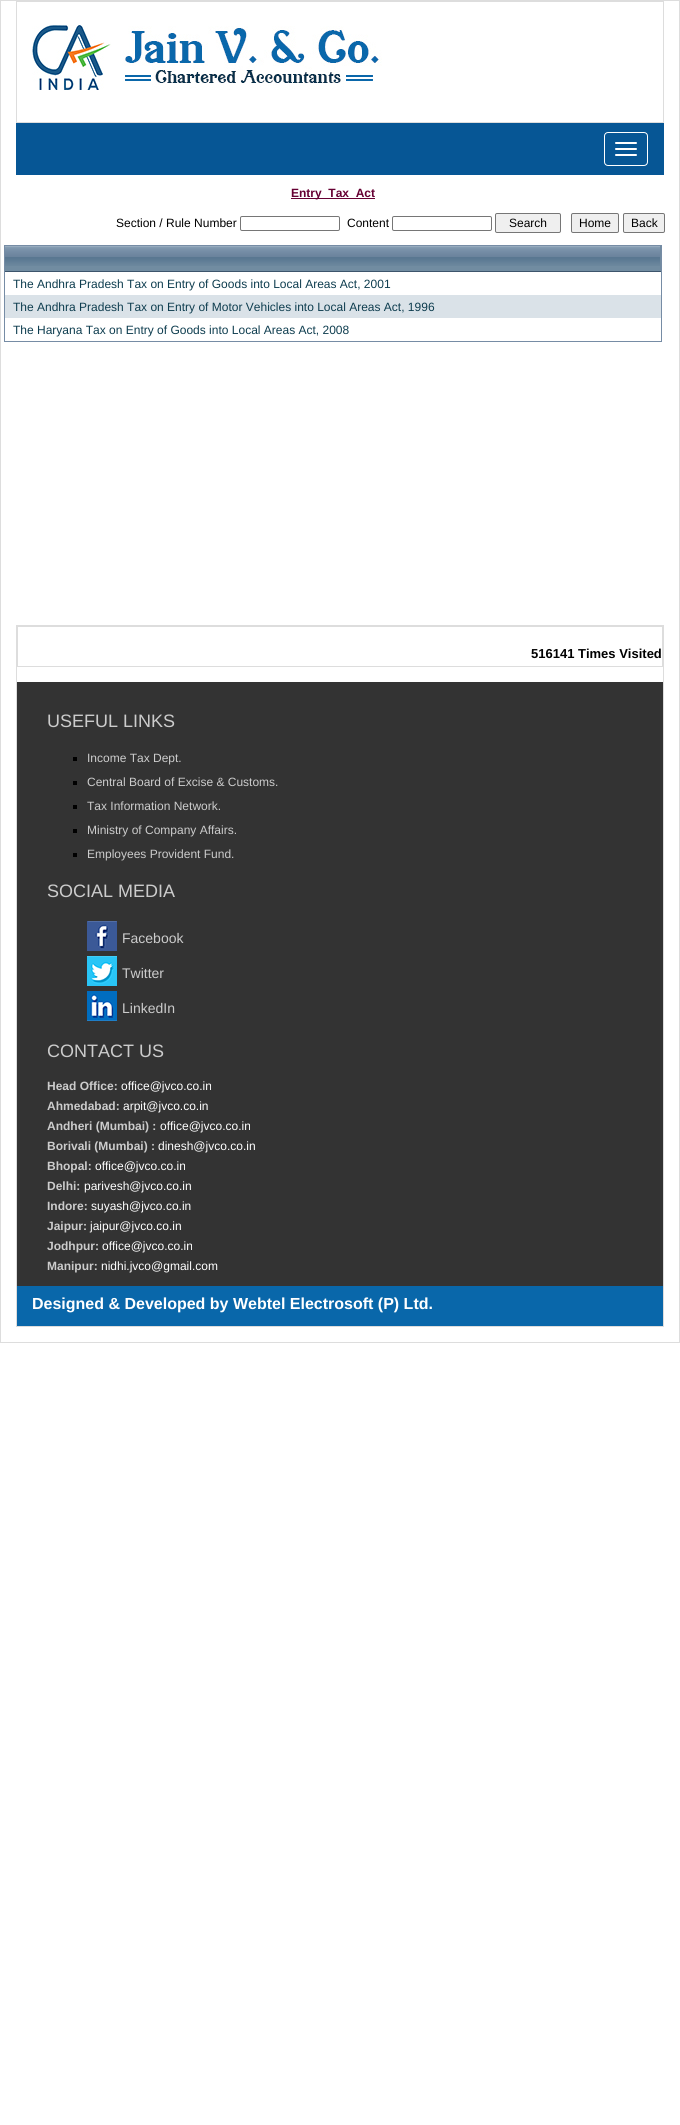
import math
import cairo


def round_path(ctx, x, y, w, h, r):
	ctx.new_sub_path()
	for i, (u, v) in enumerate([(x + w - r, y + h - r), (x + r, y + h - r), (x + r, y + r), (x + w - r, y + r)]):
		ctx.arc(u, v, r, i * math.pi / 2, (i + 1) * math.pi / 2)
	ctx.close_path()

def paste(ctx, path, x, y, w, h):
	ctx.save()
	ctx.set_source_surface(cairo.ImageSurface.create_from_png(path), x, y)
	ctx.rectangle(x, y, w, h)
	ctx.fill()
	ctx.restore()

def draw(ctx):
	ctx.set_source_rgb(1, 1, 1)
	ctx.paint()
	ctx.rectangle(0.5, 0.5, 679, 1342)
	ctx.set_source_rgb(0.867, 0.867, 0.867)
	ctx.set_line_width(1)
	ctx.stroke()
	ctx.rectangle(16, 1, 648, 1)
	ctx.rectangle(663, 1, 1, 122)
	ctx.rectangle(16, 122, 648, 1)
	ctx.rectangle(16, 1, 1, 122)
	ctx.fill()
	paste(ctx, 'media/1.png', 32, 25, 350, 65)
	ctx.set_source_rgb(0.024, 0.337, 0.584)
	ctx.rectangle(16, 123, 648, 52)
	ctx.fill()
	round_path(ctx, 604.5, 132.5, 43, 33, 3.5)
	ctx.set_source_rgb(1, 1, 1)
	ctx.stroke()
	round_path(ctx, 615, 142, 22, 2, 1)
	ctx.fill()
	round_path(ctx, 615, 148, 22, 2, 1)
	ctx.fill()
	round_path(ctx, 615, 154, 22, 2, 1)
	ctx.fill()
	ctx.set_source_rgb(0.4, 0, 0.2)
	ctx.rectangle(291, 198, 84, 1)
	ctx.fill()
	ctx.select_font_face('Liberation Sans', cairo.FONT_SLANT_NORMAL, cairo.FONT_WEIGHT_BOLD)
	ctx.set_font_size(12)
	ctx.move_to(291, 197)
	ctx.show_text('Entry_Tax_Act')
	ctx.select_font_face('Liberation Sans')
	ctx.set_source_rgb(0, 0, 0)
	ctx.move_to(116, 227)
	ctx.show_text('Section / Rule Number')
	round_path(ctx, 240.5, 216.5, 99, 14, 1.5)
	ctx.set_source_rgb(0.463, 0.463, 0.463)
	ctx.stroke()
	ctx.set_source_rgb(0, 0, 0)
	ctx.move_to(347, 227)
	ctx.show_text('Content')
	round_path(ctx, 392.5, 216.5, 99, 14, 1.5)
	ctx.set_source_rgb(0.463, 0.463, 0.463)
	ctx.stroke()
	ctx.set_source_rgb(0.937, 0.937, 0.937)
	round_path(ctx, 495.5, 213.5, 65, 19, 1.5)
	ctx.fill_preserve()
	ctx.set_source_rgb(0.463, 0.463, 0.463)
	ctx.stroke()
	ctx.set_source_rgb(0, 0, 0)
	ctx.move_to(509, 227)
	ctx.show_text('Search')
	ctx.set_source_rgb(0.937, 0.937, 0.937)
	round_path(ctx, 571.5, 213.5, 47, 19, 1.5)
	ctx.fill_preserve()
	ctx.set_source_rgb(0.463, 0.463, 0.463)
	ctx.stroke()
	ctx.set_source_rgb(0, 0, 0)
	ctx.move_to(579, 227)
	ctx.show_text('Home')
	ctx.set_source_rgb(0.937, 0.937, 0.937)
	round_path(ctx, 623.5, 213.5, 41, 19, 1.5)
	ctx.fill_preserve()
	ctx.set_source_rgb(0.463, 0.463, 0.463)
	ctx.stroke()
	ctx.set_source_rgb(0, 0, 0)
	ctx.move_to(631, 227)
	ctx.show_text('Back')
	ctx.rectangle(4.5, 245.5, 657, 96)
	ctx.set_source_rgb(0.463, 0.549, 0.647)
	ctx.stroke()
	ctx.set_source_rgb(0.443, 0.549, 0.631)
	ctx.rectangle(5, 266, 655, 5)
	ctx.fill()
	paste(ctx, 'media/2.png', 5, 246, 655, 20)
	ctx.set_source_rgb(0.447, 0.545, 0.631)
	ctx.rectangle(660, 246, 1, 26)
	ctx.fill()
	ctx.set_source_rgb(0.239, 0.333, 0.424)
	ctx.rectangle(5, 271, 656, 1)
	ctx.fill()
	ctx.set_source_rgb(0.055, 0.239, 0.31)
	ctx.move_to(13, 288)
	ctx.show_text('The Andhra Pradesh Tax on Entry of Goods into Local Areas Act, 2001')
	ctx.set_source_rgb(0.855, 0.886, 0.91)
	ctx.rectangle(5, 295, 656, 23)
	ctx.fill()
	ctx.set_source_rgb(0.055, 0.239, 0.31)
	ctx.move_to(13, 311)
	ctx.show_text('The Andhra Pradesh Tax on Entry of Motor Vehicles into Local Areas Act, 1996')
	ctx.move_to(13, 334)
	ctx.show_text('The Haryana Tax on Entry of Goods into Local Areas Act, 2008')
	ctx.set_source_rgb(0.867, 0.867, 0.867)
	ctx.rectangle(16, 625, 648, 1)
	ctx.rectangle(663, 625, 1, 702)
	ctx.rectangle(16, 1326, 648, 1)
	ctx.rectangle(16, 625, 1, 702)
	ctx.rectangle(17, 626, 646, 1)
	ctx.rectangle(662, 626, 1, 41)
	ctx.rectangle(17, 666, 646, 1)
	ctx.rectangle(17, 626, 1, 41)
	ctx.fill()
	ctx.select_font_face('Liberation Sans', cairo.FONT_SLANT_NORMAL, cairo.FONT_WEIGHT_BOLD)
	ctx.set_font_size(13)
	ctx.set_source_rgb(0, 0, 0)
	ctx.move_to(531, 658)
	ctx.show_text('516141 Times Visited')
	ctx.set_source_rgb(0.2, 0.2, 0.2)
	ctx.rectangle(17, 682, 646, 604)
	ctx.fill()
	ctx.select_font_face('Liberation Sans')
	ctx.set_font_size(18)
	ctx.set_source_rgb(0.8, 0.8, 0.8)
	ctx.move_to(47, 727)
	ctx.show_text('USEFUL LINKS')
	ctx.set_source_rgb(0, 0, 0)
	ctx.rectangle(73, 757, 4, 4)
	ctx.fill()
	ctx.set_font_size(12)
	ctx.set_source_rgb(0.8, 0.8, 0.8)
	ctx.move_to(87, 762)
	ctx.show_text('Income Tax Dept.')
	ctx.set_source_rgb(0, 0, 0)
	ctx.rectangle(73, 781, 4, 4)
	ctx.fill()
	ctx.set_source_rgb(0.8, 0.8, 0.8)
	ctx.move_to(87, 786)
	ctx.show_text('Central Board of Excise & Customs.')
	ctx.set_source_rgb(0, 0, 0)
	ctx.rectangle(73, 805, 4, 4)
	ctx.fill()
	ctx.set_source_rgb(0.8, 0.8, 0.8)
	ctx.move_to(87, 810)
	ctx.show_text('Tax Information Network.')
	ctx.set_source_rgb(0, 0, 0)
	ctx.rectangle(73, 829, 4, 4)
	ctx.fill()
	ctx.set_source_rgb(0.8, 0.8, 0.8)
	ctx.move_to(87, 834)
	ctx.show_text('Ministry of Company Affairs.')
	ctx.set_source_rgb(0, 0, 0)
	ctx.rectangle(73, 853, 4, 4)
	ctx.fill()
	ctx.set_source_rgb(0.8, 0.8, 0.8)
	ctx.move_to(87, 858)
	ctx.show_text('Employees Provident Fund.')
	ctx.set_font_size(18)
	ctx.move_to(47, 897)
	ctx.show_text('SOCIAL MEDIA')
	paste(ctx, 'media/3.png', 87, 921, 30, 30)
	ctx.set_font_size(14)
	ctx.move_to(122, 943)
	ctx.show_text('Facebook')
	paste(ctx, 'media/4.png', 87, 956, 30, 30)
	ctx.move_to(122, 978)
	ctx.show_text('Twitter')
	paste(ctx, 'media/5.png', 87, 991, 30, 30)
	ctx.move_to(122, 1013)
	ctx.show_text('LinkedIn')
	ctx.set_font_size(18)
	ctx.move_to(47, 1057)
	ctx.show_text('CONTACT US')
	ctx.select_font_face('Liberation Sans', cairo.FONT_SLANT_NORMAL, cairo.FONT_WEIGHT_BOLD)
	ctx.set_font_size(12)
	ctx.move_to(47, 1090)
	ctx.show_text('Head Office:')
	ctx.select_font_face('Liberation Sans')
	ctx.set_source_rgb(1, 1, 1)
	ctx.move_to(121, 1090)
	ctx.show_text('office@jvco.co.in')
	ctx.select_font_face('Liberation Sans', cairo.FONT_SLANT_NORMAL, cairo.FONT_WEIGHT_BOLD)
	ctx.set_source_rgb(0.8, 0.8, 0.8)
	ctx.move_to(47, 1110)
	ctx.show_text('Ahmedabad:')
	ctx.select_font_face('Liberation Sans')
	ctx.set_source_rgb(1, 1, 1)
	ctx.move_to(123, 1110)
	ctx.show_text('arpit@jvco.co.in')
	ctx.select_font_face('Liberation Sans', cairo.FONT_SLANT_NORMAL, cairo.FONT_WEIGHT_BOLD)
	ctx.set_source_rgb(0.8, 0.8, 0.8)
	ctx.move_to(47, 1130)
	ctx.show_text('Andheri (Mumbai) :')
	ctx.select_font_face('Liberation Sans')
	ctx.set_source_rgb(1, 1, 1)
	ctx.move_to(160, 1130)
	ctx.show_text('office@jvco.co.in')
	ctx.select_font_face('Liberation Sans', cairo.FONT_SLANT_NORMAL, cairo.FONT_WEIGHT_BOLD)
	ctx.set_source_rgb(0.8, 0.8, 0.8)
	ctx.move_to(47, 1150)
	ctx.show_text('Borivali (Mumbai) :')
	ctx.select_font_face('Liberation Sans')
	ctx.set_source_rgb(1, 1, 1)
	ctx.move_to(158, 1150)
	ctx.show_text('dinesh@jvco.co.in')
	ctx.select_font_face('Liberation Sans', cairo.FONT_SLANT_NORMAL, cairo.FONT_WEIGHT_BOLD)
	ctx.set_source_rgb(0.8, 0.8, 0.8)
	ctx.move_to(47, 1170)
	ctx.show_text('Bhopal:')
	ctx.select_font_face('Liberation Sans')
	ctx.set_source_rgb(1, 1, 1)
	ctx.move_to(95, 1170)
	ctx.show_text('office@jvco.co.in')
	ctx.select_font_face('Liberation Sans', cairo.FONT_SLANT_NORMAL, cairo.FONT_WEIGHT_BOLD)
	ctx.set_source_rgb(0.8, 0.8, 0.8)
	ctx.move_to(47, 1190)
	ctx.show_text('Delhi:')
	ctx.select_font_face('Liberation Sans')
	ctx.set_source_rgb(1, 1, 1)
	ctx.move_to(84, 1190)
	ctx.show_text('parivesh@jvco.co.in')
	ctx.select_font_face('Liberation Sans', cairo.FONT_SLANT_NORMAL, cairo.FONT_WEIGHT_BOLD)
	ctx.set_source_rgb(0.8, 0.8, 0.8)
	ctx.move_to(47, 1210)
	ctx.show_text('Indore:')
	ctx.select_font_face('Liberation Sans')
	ctx.set_source_rgb(1, 1, 1)
	ctx.move_to(91, 1210)
	ctx.show_text('suyash@jvco.co.in')
	ctx.select_font_face('Liberation Sans', cairo.FONT_SLANT_NORMAL, cairo.FONT_WEIGHT_BOLD)
	ctx.set_source_rgb(0.8, 0.8, 0.8)
	ctx.move_to(47, 1230)
	ctx.show_text('Jaipur:')
	ctx.select_font_face('Liberation Sans')
	ctx.set_source_rgb(1, 1, 1)
	ctx.move_to(90, 1230)
	ctx.show_text('jaipur@jvco.co.in')
	ctx.select_font_face('Liberation Sans', cairo.FONT_SLANT_NORMAL, cairo.FONT_WEIGHT_BOLD)
	ctx.set_source_rgb(0.8, 0.8, 0.8)
	ctx.move_to(47, 1250)
	ctx.show_text('Jodhpur:')
	ctx.select_font_face('Liberation Sans')
	ctx.set_source_rgb(1, 1, 1)
	ctx.move_to(102, 1250)
	ctx.show_text('office@jvco.co.in')
	ctx.select_font_face('Liberation Sans', cairo.FONT_SLANT_NORMAL, cairo.FONT_WEIGHT_BOLD)
	ctx.set_source_rgb(0.8, 0.8, 0.8)
	ctx.move_to(47, 1270)
	ctx.show_text('Manipur:')
	ctx.select_font_face('Liberation Sans')
	ctx.set_source_rgb(1, 1, 1)
	ctx.move_to(101, 1270)
	ctx.show_text('nidhi.jvco@gmail.com')
	ctx.set_source_rgb(0.039, 0.404, 0.667)
	ctx.rectangle(17, 1286, 646, 40)
	ctx.fill()
	ctx.select_font_face('Liberation Sans', cairo.FONT_SLANT_NORMAL, cairo.FONT_WEIGHT_BOLD)
	ctx.set_font_size(16)
	ctx.set_source_rgb(1, 1, 1)
	ctx.move_to(32, 1309)
	ctx.show_text('Designed & Developed by Webtel Electrosoft (P) Ltd.')


surface = cairo.ImageSurface(cairo.FORMAT_RGB24, 680, 2125)
ctx = cairo.Context(surface)
options = cairo.FontOptions()
options.set_hint_metrics(cairo.HINT_METRICS_OFF)
options.set_hint_style(cairo.HINT_STYLE_NONE)
ctx.set_font_options(options)
ctx.set_miter_limit(4)
draw(ctx)
surface.write_to_png('image.png')
